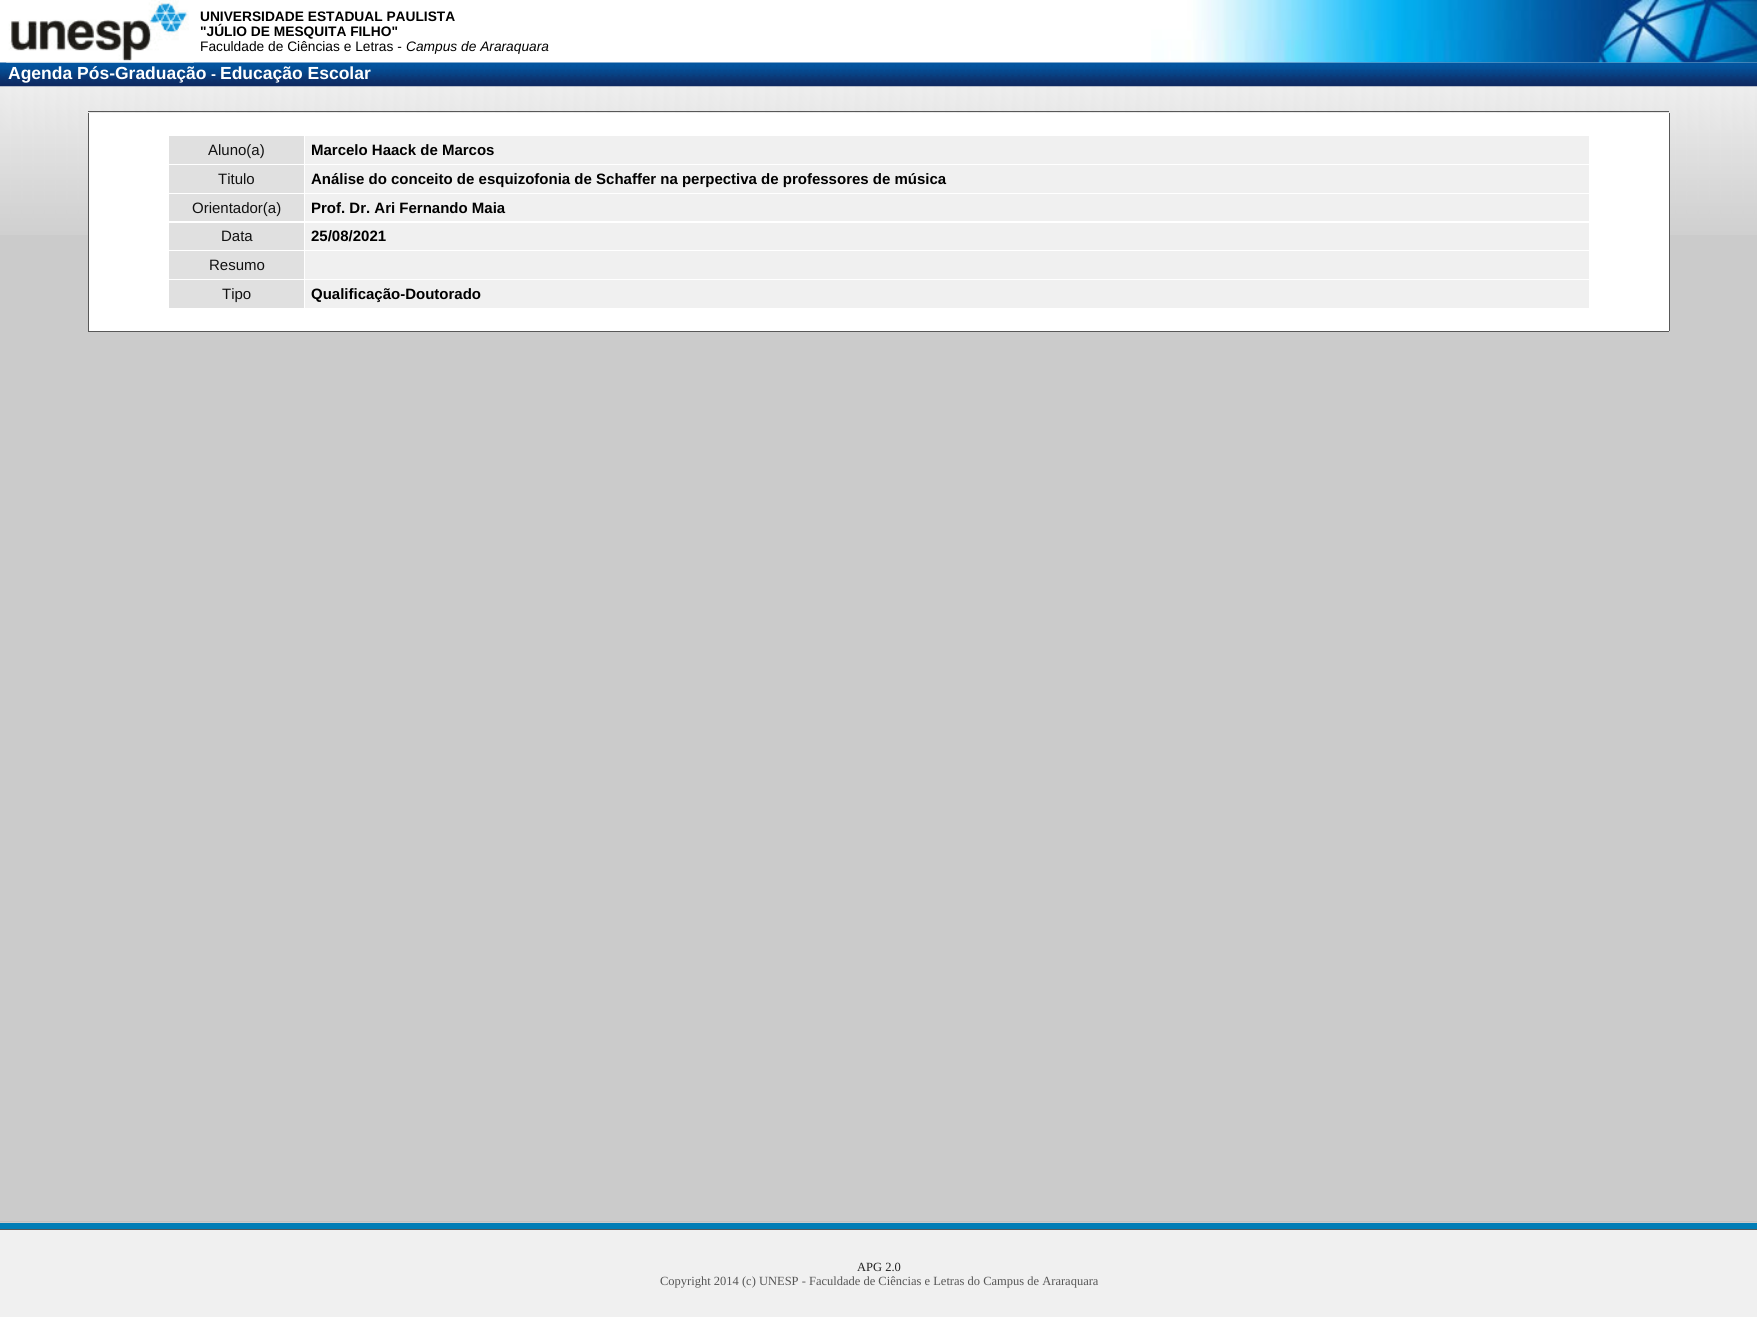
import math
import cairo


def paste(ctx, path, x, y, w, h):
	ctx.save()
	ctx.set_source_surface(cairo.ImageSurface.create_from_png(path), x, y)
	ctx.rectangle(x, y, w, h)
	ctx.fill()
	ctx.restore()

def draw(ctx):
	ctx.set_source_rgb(0.796, 0.796, 0.796)
	ctx.paint()
	paste(ctx, 'media/1.png', 0, 86, 1757, 149)
	ctx.set_source_rgb(1, 1, 1)
	ctx.rectangle(0, 0, 1757, 63)
	ctx.fill()
	paste(ctx, 'media/2.png', 1151, 0, 606, 63)
	paste(ctx, 'media/4.png', 0, 62, 1757, 25)
	paste(ctx, 'media/3.png', 6, 0, 188, 63)
	ctx.select_font_face('Liberation Sans', cairo.FONT_SLANT_NORMAL, cairo.FONT_WEIGHT_BOLD)
	ctx.set_font_size(13.75)
	ctx.set_source_rgb(0, 0, 0)
	ctx.move_to(200, 21)
	ctx.show_text('UNIVERSIDADE ESTADUAL PAULISTA')
	ctx.move_to(200, 36)
	ctx.show_text('"JÚLIO DE MESQUITA FILHO"')
	ctx.select_font_face('Liberation Sans')
	ctx.move_to(200, 51)
	ctx.show_text('Faculdade de Ciências e Letras -')
	ctx.select_font_face('Liberation Sans', cairo.FONT_SLANT_ITALIC)
	ctx.move_to(406, 51)
	ctx.show_text('Campus de Araraquara')
	ctx.select_font_face('Liberation Sans', cairo.FONT_SLANT_NORMAL, cairo.FONT_WEIGHT_BOLD)
	ctx.set_font_size(17.5)
	ctx.set_source_rgb(1, 1, 1)
	ctx.move_to(8, 79)
	ctx.show_text('Agenda Pós-Graduação')
	ctx.set_font_size(15)
	ctx.move_to(211, 79)
	ctx.show_text('-')
	ctx.set_font_size(17.5)
	ctx.move_to(220, 79)
	ctx.show_text('Educação Escolar')
	ctx.set_source_rgb(0.345, 0.345, 0.345)
	ctx.rectangle(88, 111, 1581, 1)
	ctx.rectangle(88, 113, 1, 218)
	ctx.fill()
	ctx.set_source_rgb(1, 1, 1)
	ctx.rectangle(89, 113, 1580, 218)
	ctx.fill()
	ctx.set_source_rgb(0.878, 0.878, 0.878)
	ctx.rectangle(169, 136, 135, 28)
	ctx.fill()
	ctx.select_font_face('Liberation Sans')
	ctx.set_font_size(15)
	ctx.set_source_rgb(0.067, 0.067, 0.067)
	ctx.move_to(208, 155)
	ctx.show_text('Aluno(a)')
	ctx.set_source_rgb(0.941, 0.941, 0.941)
	ctx.rectangle(305, 136, 1284, 28)
	ctx.fill()
	ctx.select_font_face('Liberation Sans', cairo.FONT_SLANT_NORMAL, cairo.FONT_WEIGHT_BOLD)
	ctx.set_source_rgb(0, 0, 0)
	ctx.move_to(311, 155)
	ctx.show_text('Marcelo Haack de Marcos')
	ctx.set_source_rgb(0.878, 0.878, 0.878)
	ctx.rectangle(169, 165, 135, 28)
	ctx.fill()
	ctx.select_font_face('Liberation Sans')
	ctx.set_source_rgb(0.067, 0.067, 0.067)
	ctx.move_to(218, 184)
	ctx.show_text('Titulo')
	ctx.set_source_rgb(0.941, 0.941, 0.941)
	ctx.rectangle(305, 165, 1284, 28)
	ctx.fill()
	ctx.select_font_face('Liberation Sans', cairo.FONT_SLANT_NORMAL, cairo.FONT_WEIGHT_BOLD)
	ctx.set_source_rgb(0, 0, 0)
	ctx.move_to(311, 184)
	ctx.show_text('Análise do conceito de esquizofonia de Schaffer na perpectiva de professores de música')
	ctx.set_source_rgb(0.878, 0.878, 0.878)
	ctx.rectangle(169, 194, 135, 27)
	ctx.fill()
	ctx.select_font_face('Liberation Sans')
	ctx.set_source_rgb(0.067, 0.067, 0.067)
	ctx.move_to(192, 213)
	ctx.show_text('Orientador(a)')
	ctx.set_source_rgb(0.941, 0.941, 0.941)
	ctx.rectangle(305, 194, 1284, 27)
	ctx.fill()
	ctx.select_font_face('Liberation Sans', cairo.FONT_SLANT_NORMAL, cairo.FONT_WEIGHT_BOLD)
	ctx.set_source_rgb(0, 0, 0)
	ctx.move_to(311, 213)
	ctx.show_text('Prof. Dr. Ari Fernando Maia')
	ctx.set_source_rgb(0.878, 0.878, 0.878)
	ctx.rectangle(169, 223, 135, 27)
	ctx.fill()
	ctx.select_font_face('Liberation Sans')
	ctx.set_source_rgb(0.067, 0.067, 0.067)
	ctx.move_to(221, 241)
	ctx.show_text('Data')
	ctx.set_source_rgb(0.941, 0.941, 0.941)
	ctx.rectangle(305, 223, 1284, 27)
	ctx.fill()
	ctx.select_font_face('Liberation Sans', cairo.FONT_SLANT_NORMAL, cairo.FONT_WEIGHT_BOLD)
	ctx.set_source_rgb(0, 0, 0)
	ctx.move_to(311, 241)
	ctx.show_text('25/08/2021')
	ctx.set_source_rgb(0.878, 0.878, 0.878)
	ctx.rectangle(169, 251, 135, 28)
	ctx.fill()
	ctx.select_font_face('Liberation Sans')
	ctx.set_source_rgb(0.067, 0.067, 0.067)
	ctx.move_to(209, 270)
	ctx.show_text('Resumo')
	ctx.set_source_rgb(0.941, 0.941, 0.941)
	ctx.rectangle(305, 251, 1284, 28)
	ctx.fill()
	ctx.set_source_rgb(0.878, 0.878, 0.878)
	ctx.rectangle(169, 280, 135, 28)
	ctx.fill()
	ctx.set_source_rgb(0.067, 0.067, 0.067)
	ctx.move_to(222, 299)
	ctx.show_text('Tipo')
	ctx.set_source_rgb(0.941, 0.941, 0.941)
	ctx.rectangle(305, 280, 1284, 28)
	ctx.fill()
	ctx.select_font_face('Liberation Sans', cairo.FONT_SLANT_NORMAL, cairo.FONT_WEIGHT_BOLD)
	ctx.set_source_rgb(0, 0, 0)
	ctx.move_to(311, 299)
	ctx.show_text('Qualificação-Doutorado')
	ctx.set_source_rgb(0.345, 0.345, 0.345)
	ctx.rectangle(1669, 113, 1, 218)
	ctx.rectangle(88, 331, 1581, 1)
	ctx.fill()
	ctx.set_source_rgb(0.753, 0.753, 0.753)
	ctx.rectangle(0, 1221, 1757, 1)
	ctx.fill()
	ctx.set_source_rgb(0, 0.49, 0.714)
	ctx.rectangle(0, 1223, 1757, 6)
	ctx.fill()
	ctx.set_source_rgb(0.345, 0.345, 0.345)
	ctx.rectangle(0, 1229, 1757, 1)
	ctx.fill()
	ctx.set_source_rgb(0.941, 0.941, 0.941)
	ctx.rectangle(0, 1230, 1757, 87)
	ctx.fill()
	ctx.select_font_face('Liberation Serif')
	ctx.set_font_size(12.5)
	ctx.set_source_rgb(0.133, 0.133, 0.133)
	ctx.move_to(857, 1271)
	ctx.show_text('APG 2.0')
	ctx.set_source_rgb(0.333, 0.333, 0.333)
	ctx.move_to(660, 1285)
	ctx.show_text('Copyright 2014 (c) UNESP - Faculdade de Ciências e Letras do Campus de Araraquara')


surface = cairo.ImageSurface(cairo.FORMAT_RGB24, 1757, 1317)
ctx = cairo.Context(surface)
options = cairo.FontOptions()
options.set_hint_metrics(cairo.HINT_METRICS_OFF)
options.set_hint_style(cairo.HINT_STYLE_NONE)
ctx.set_font_options(options)
ctx.set_miter_limit(4)
draw(ctx)
surface.write_to_png('image.png')
